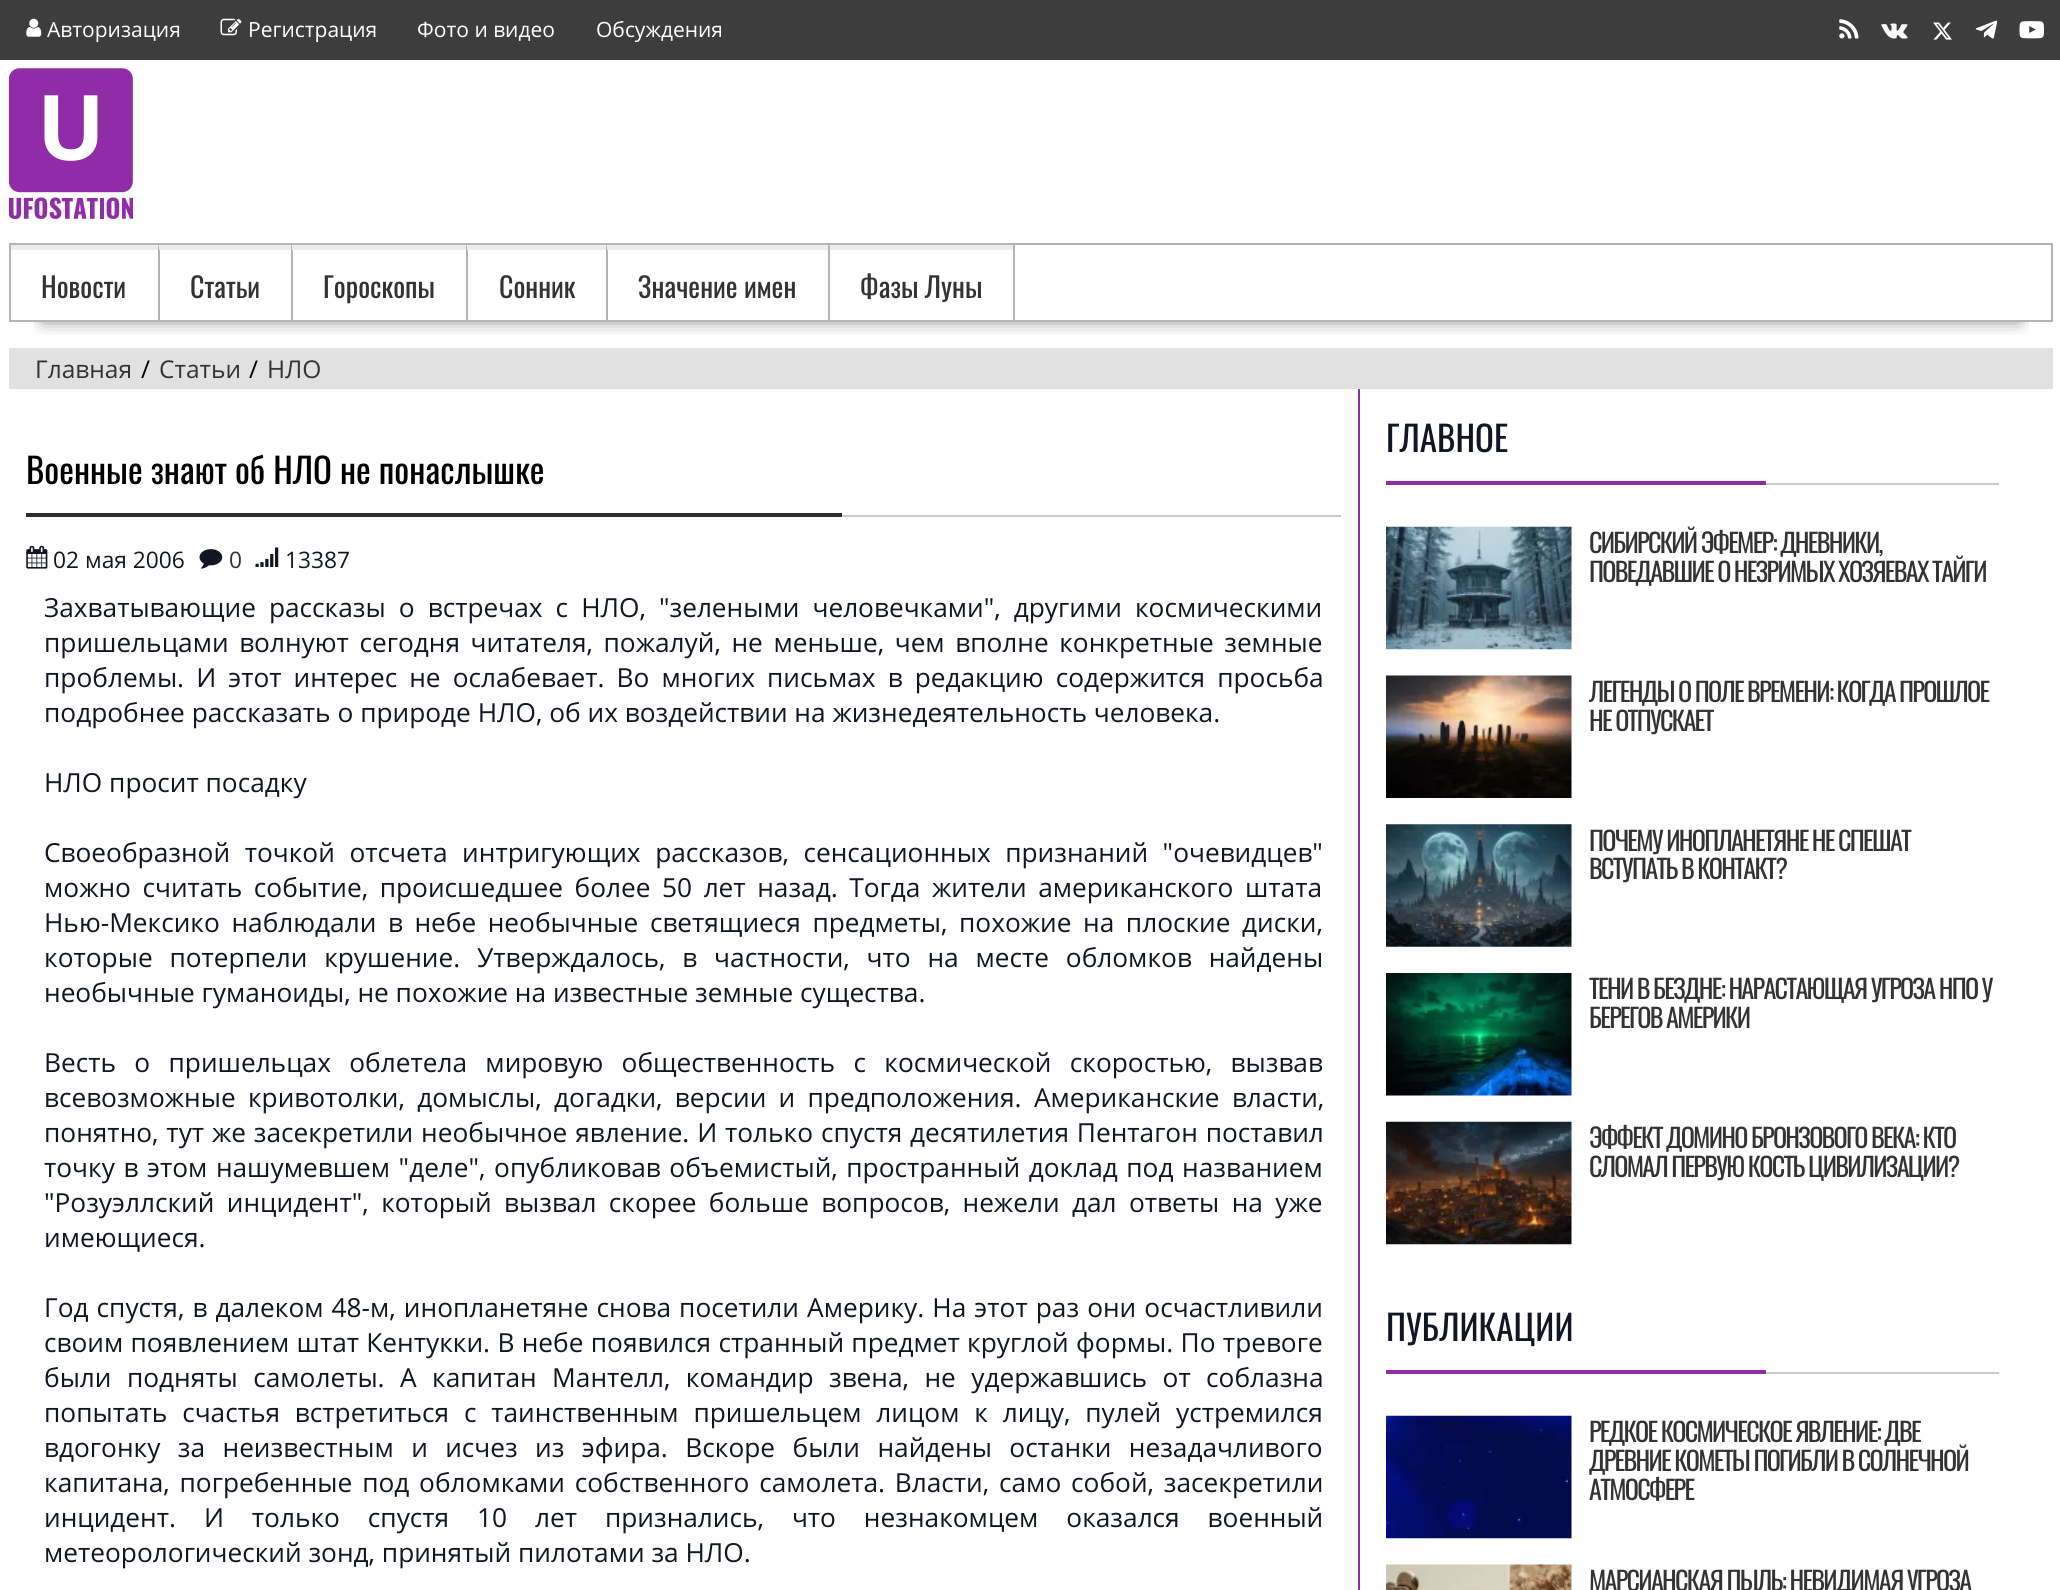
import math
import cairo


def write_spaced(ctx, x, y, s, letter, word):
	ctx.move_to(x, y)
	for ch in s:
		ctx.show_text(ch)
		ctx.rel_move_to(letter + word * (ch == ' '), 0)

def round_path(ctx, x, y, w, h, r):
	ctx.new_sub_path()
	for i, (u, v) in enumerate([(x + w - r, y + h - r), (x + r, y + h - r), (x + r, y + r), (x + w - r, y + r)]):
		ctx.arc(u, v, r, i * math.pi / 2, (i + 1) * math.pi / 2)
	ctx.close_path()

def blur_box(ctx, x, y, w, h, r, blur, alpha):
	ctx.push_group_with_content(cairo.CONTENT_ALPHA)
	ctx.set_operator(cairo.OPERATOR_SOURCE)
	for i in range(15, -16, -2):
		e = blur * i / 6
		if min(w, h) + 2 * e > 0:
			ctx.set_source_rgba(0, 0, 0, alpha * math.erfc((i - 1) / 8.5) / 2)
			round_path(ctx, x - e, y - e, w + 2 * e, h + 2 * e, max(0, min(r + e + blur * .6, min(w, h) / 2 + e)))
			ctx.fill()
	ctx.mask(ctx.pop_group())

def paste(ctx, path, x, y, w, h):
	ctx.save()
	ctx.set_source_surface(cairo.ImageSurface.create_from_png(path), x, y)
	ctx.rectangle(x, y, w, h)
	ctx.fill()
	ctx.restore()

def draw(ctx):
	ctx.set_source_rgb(1, 1, 1)
	ctx.paint()
	ctx.set_source_rgb(0.239, 0.239, 0.239)
	ctx.rectangle(0, 0, 2060, 60)
	ctx.fill()
	paste(ctx, 'media/1.png', 26, 18, 16, 19)
	ctx.select_font_face('Open Sans')
	ctx.set_font_size(21)
	ctx.set_source_rgb(1, 1, 1)
	ctx.move_to(47, 37)
	ctx.show_text('Авторизация')
	paste(ctx, 'media/2.png', 220, 18, 22, 18)
	for x, y, s in [
		(248, 37, 'Регистрация'),
		(417, 37, 'Фото и видео'),
		(596, 37, 'Обсуждения'),
	]:
		ctx.move_to(x, y)
		ctx.show_text(s)
	paste(ctx, 'media/3.png', 1839, 19, 20, 20)
	paste(ctx, 'media/4.png', 1881, 23, 27, 16)
	paste(ctx, 'media/5.png', 1933, 22, 19, 18)
	paste(ctx, 'media/6.png', 1975, 20, 23, 19)
	paste(ctx, 'media/7.png', 2019, 21, 25, 18)
	paste(ctx, 'media/8.png', 9, 68, 124, 151)
	ctx.save()
	ctx.rectangle(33, 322, 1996, 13)
	ctx.clip()
	ctx.set_source_rgb(0, 0, 0)
	blur_box(ctx, 44, 308, 1974, 9, 0, 9.5, 0.75)
	ctx.restore()
	ctx.rectangle(10, 244, 2042, 77)
	ctx.set_source_rgb(0.71, 0.71, 0.71)
	ctx.stroke()
	ctx.rectangle(158, 245, 2, 75)
	ctx.fill()
	ctx.set_source_rgb(0.922, 0.922, 0.922)
	ctx.rectangle(11, 245, 147, 5)
	ctx.fill()
	ctx.select_font_face('Oswald')
	ctx.set_font_size(28)
	ctx.set_source_rgb(0.2, 0.2, 0.2)
	ctx.move_to(41, 298)
	ctx.show_text('Новости')
	ctx.set_source_rgb(0.71, 0.71, 0.71)
	ctx.rectangle(291, 245, 2, 75)
	ctx.fill()
	ctx.set_source_rgb(0.922, 0.922, 0.922)
	ctx.rectangle(159, 245, 132, 5)
	ctx.fill()
	ctx.set_source_rgb(0.2, 0.2, 0.2)
	ctx.move_to(190, 298)
	ctx.show_text('Статьи')
	ctx.set_source_rgb(0.71, 0.71, 0.71)
	ctx.rectangle(466, 245, 2, 75)
	ctx.fill()
	ctx.set_source_rgb(0.922, 0.922, 0.922)
	ctx.rectangle(292, 245, 174, 5)
	ctx.fill()
	ctx.set_source_rgb(0.2, 0.2, 0.2)
	ctx.move_to(323, 298)
	ctx.show_text('Гороскопы')
	ctx.set_source_rgb(0.71, 0.71, 0.71)
	ctx.rectangle(606, 245, 2, 75)
	ctx.fill()
	ctx.set_source_rgb(0.922, 0.922, 0.922)
	ctx.rectangle(467, 245, 139, 5)
	ctx.fill()
	ctx.set_source_rgb(0.2, 0.2, 0.2)
	ctx.move_to(499, 298)
	ctx.show_text('Сонник')
	ctx.set_source_rgb(0.71, 0.71, 0.71)
	ctx.rectangle(828, 245, 2, 75)
	ctx.fill()
	ctx.set_source_rgb(0.922, 0.922, 0.922)
	ctx.rectangle(607, 245, 221, 5)
	ctx.fill()
	ctx.set_source_rgb(0.2, 0.2, 0.2)
	ctx.move_to(638, 298)
	ctx.show_text('Значение имен')
	ctx.set_source_rgb(0.71, 0.71, 0.71)
	ctx.rectangle(1013, 245, 2, 75)
	ctx.fill()
	ctx.set_source_rgb(0.922, 0.922, 0.922)
	ctx.rectangle(830, 245, 183, 5)
	ctx.fill()
	ctx.set_source_rgb(0.2, 0.2, 0.2)
	ctx.move_to(860, 298)
	ctx.show_text('Фазы Луны')
	ctx.set_source_rgb(0.882, 0.882, 0.882)
	ctx.rectangle(9, 348, 2044, 41)
	ctx.fill()
	ctx.select_font_face('Open Sans')
	ctx.set_font_size(24.5)
	ctx.set_source_rgb(0.2, 0.2, 0.2)
	ctx.move_to(35, 378)
	ctx.show_text('Главная')
	ctx.set_source_rgb(0, 0, 0)
	ctx.move_to(141, 378)
	ctx.show_text('/')
	ctx.set_source_rgb(0.2, 0.2, 0.2)
	ctx.move_to(159, 378)
	ctx.show_text('Статьи')
	ctx.set_source_rgb(0, 0, 0)
	ctx.move_to(249, 378)
	ctx.show_text('/')
	ctx.set_source_rgb(0.2, 0.2, 0.2)
	ctx.move_to(267, 378)
	ctx.show_text('НЛО')
	ctx.set_source_rgb(0.8, 0.8, 0.8)
	ctx.rectangle(842, 515, 499, 2)
	ctx.fill()
	ctx.select_font_face('Oswald')
	ctx.set_font_size(35)
	ctx.set_source_rgb(0, 0, 0)
	ctx.move_to(26, 484)
	ctx.show_text('Военные знают об НЛО не понаслышке')
	ctx.set_source_rgb(0.176, 0.176, 0.176)
	ctx.rectangle(26, 513, 816, 4)
	ctx.fill()
	paste(ctx, 'media/9.png', 26, 545, 22, 24)
	ctx.select_font_face('Open Sans')
	ctx.set_font_size(22.75)
	ctx.set_source_rgb(0.071, 0.086, 0.141)
	ctx.move_to(53, 568)
	ctx.show_text('02 мая 2006')
	paste(ctx, 'media/10.png', 199, 549, 24, 20)
	ctx.set_source_rgb(0.2, 0.2, 0.2)
	ctx.move_to(229, 568)
	ctx.show_text('0')
	paste(ctx, 'media/11.png', 255, 547, 24, 20)
	ctx.set_source_rgb(0.071, 0.086, 0.141)
	ctx.move_to(285, 568)
	ctx.show_text('13387')
	ctx.set_font_size(26.25)
	write_spaced(ctx, 44, 617, 'Захватывающие рассказы о встречах с НЛО, "зелеными человечками", другими космическими', 0, 6.25)
	write_spaced(ctx, 44, 652, 'пришельцами волнуют сегодня читателя, пожалуй, не меньше, чем вполне конкретные земные', 0, 3.75)
	write_spaced(ctx, 44, 687, 'проблемы. И этот интерес не ослабевает. Во многих письмах в редакцию содержится просьба', 0, 5.25)
	ctx.move_to(44, 722)
	ctx.show_text('подробнее рассказать о природе НЛО, об их воздействии на жизнедеятельность человека.')
	ctx.move_to(44, 792)
	ctx.show_text('НЛО просит посадку')
	write_spaced(ctx, 44, 862, 'Своеобразной точкой отсчета интригующих рассказов, сенсационных признаний "очевидцев"', 0, 7.75)
	write_spaced(ctx, 44, 897, 'можно считать событие, происшедшее более 50 лет назад. Тогда жители американского штата', 0, 4.75)
	write_spaced(ctx, 44, 932, 'Нью-Мексико наблюдали в небе необычные светящиеся предметы, похожие на плоские диски,', 0, 4.75)
	write_spaced(ctx, 44, 967, 'которые потерпели крушение. Утверждалось, в частности, что на месте обломков найдены', 0, 10)
	ctx.move_to(44, 1002)
	ctx.show_text('необычные гуманоиды, не похожие на известные земные существа.')
	write_spaced(ctx, 44, 1072, 'Весть о пришельцах облетела мировую общественность с космической скоростью, вызвав', 0, 11.5)
	write_spaced(ctx, 44, 1107, 'всевозможные кривотолки, домыслы, догадки, версии и предположения. Американские власти,', 0, 5.5)
	write_spaced(ctx, 44, 1142, 'понятно, тут же засекретили необычное явление. И только спустя десятилетия Пентагон поставил', 0, 1)
	write_spaced(ctx, 44, 1177, 'точку в этом нашумевшем "деле", опубликовав объемистый, пространный доклад под названием', 0, 1.75)
	write_spaced(ctx, 44, 1212, '"Розуэллский инцидент", который вызвал скорее больше вопросов, нежели дал ответы на уже', 0, 5.6)
	ctx.move_to(44, 1247)
	ctx.show_text('имеющиеся.')
	write_spaced(ctx, 44, 1317, 'Год спустя, в далеком 48-м, инопланетяне снова посетили Америку. На этот раз они осчастливили', 0, 1.25)
	write_spaced(ctx, 44, 1352, 'своим появлением штат Кентукки. В небе появился странный предмет круглой формы. По тревоге', 0, 0.5)
	write_spaced(ctx, 44, 1387, 'были подняты самолеты. А капитан Мантелл, командир звена, не удержавшись от соблазна', 0, 8.6)
	write_spaced(ctx, 44, 1422, 'попытать счастья встретиться с таинственным пришельцем лицом к лицу, пулей устремился', 0, 8)
	write_spaced(ctx, 44, 1457, 'вдогонку за неизвестным и исчез из эфира. Вскоре были найдены останки незадачливого', 0, 10.6)
	write_spaced(ctx, 44, 1492, 'капитана, погребенные под обломками собственного самолета. Власти, само собой, засекретили', 0, 3)
	write_spaced(ctx, 44, 1527, 'инцидент. И только спустя 10 лет признались, что незнакомцем оказался военный', 0, 21.1)
	ctx.move_to(44, 1562)
	ctx.show_text('метеорологический зонд, принятый пилотами за НЛО.')
	ctx.set_source_rgb(0.565, 0.173, 0.659)
	ctx.rectangle(1358, 389, 2, 1201)
	ctx.fill()
	ctx.set_source_rgb(0.8, 0.8, 0.8)
	ctx.rectangle(1766, 483, 233, 2)
	ctx.fill()
	ctx.select_font_face('Oswald')
	ctx.set_font_size(35)
	ctx.set_source_rgb(0.071, 0.086, 0.141)
	ctx.move_to(1386, 452)
	ctx.show_text('ГЛАВНОЕ')
	ctx.set_source_rgb(0.565, 0.173, 0.659)
	ctx.rectangle(1386, 481, 380, 4)
	ctx.fill()
	paste(ctx, 'media/12.png', 1386, 526, 186, 124)
	ctx.set_font_size(26.25)
	ctx.set_source_rgb(0.2, 0.2, 0.2)
	write_spaced(ctx, 1589, 553, 'СИБИРСКИЙ ЭФЕМЕР: ДНЕВНИКИ,', -1.75, 0)
	write_spaced(ctx, 1589, 582, 'ПОВЕДАВШИЕ О НЕЗРИМЫХ ХОЗЯЕВАХ ТАЙГИ', -1.75, 0)
	paste(ctx, 'media/13.png', 1386, 675, 186, 123)
	write_spaced(ctx, 1589, 702, 'ЛЕГЕНДЫ О ПОЛЕ ВРЕМЕНИ: КОГДА ПРОШЛОЕ', -1.75, 0)
	write_spaced(ctx, 1589, 731, 'НЕ ОТПУСКАЕТ', -1.75, 0)
	paste(ctx, 'media/14.png', 1386, 824, 186, 123)
	write_spaced(ctx, 1589, 851, 'ПОЧЕМУ ИНОПЛАНЕТЯНЕ НЕ СПЕШАТ', -1.75, 0)
	write_spaced(ctx, 1589, 879, 'ВСТУПАТЬ В КОНТАКТ?', -1.75, 0)
	paste(ctx, 'media/15.png', 1386, 973, 186, 123)
	write_spaced(ctx, 1589, 999, 'ТЕНИ В БЕЗДНЕ: НАРАСТАЮЩАЯ УГРОЗА НПО У', -1.75, 0)
	write_spaced(ctx, 1589, 1028, 'БЕРЕГОВ АМЕРИКИ', -1.75, 0)
	paste(ctx, 'media/16.png', 1386, 1121, 186, 124)
	write_spaced(ctx, 1589, 1148, 'ЭФФЕКТ ДОМИНО БРОНЗОВОГО ВЕКА: КТО', -1.75, 0)
	write_spaced(ctx, 1589, 1177, 'СЛОМАЛ ПЕРВУЮ КОСТЬ ЦИВИЛИЗАЦИИ?', -1.75, 0)
	ctx.set_source_rgb(0.8, 0.8, 0.8)
	ctx.rectangle(1766, 1372, 233, 2)
	ctx.fill()
	ctx.set_font_size(35)
	ctx.set_source_rgb(0.071, 0.086, 0.141)
	ctx.move_to(1386, 1341)
	ctx.show_text('ПУБЛИКАЦИИ')
	ctx.set_source_rgb(0.565, 0.173, 0.659)
	ctx.rectangle(1386, 1370, 380, 4)
	ctx.fill()
	paste(ctx, 'media/17.png', 1386, 1415, 186, 124)
	ctx.set_font_size(26.25)
	ctx.set_source_rgb(0.2, 0.2, 0.2)
	for x, y, s in [
		(1589, 1442, 'РЕДКОЕ КОСМИЧЕСКОЕ ЯВЛЕНИЕ: ДВЕ'),
		(1589, 1471, 'ДРЕВНИЕ КОМЕТЫ ПОГИБЛИ В СОЛНЕЧНОЙ'),
		(1589, 1500, 'АТМОСФЕРЕ'),
	]:
		write_spaced(ctx, x, y, s, -1.75, 0)
	paste(ctx, 'media/18.png', 1386, 1564, 186, 26)
	write_spaced(ctx, 1589, 1591, 'МАРСИАНСКАЯ ПЫЛЬ: НЕВИДИМАЯ УГРОЗА', -1.75, 0)


surface = cairo.ImageSurface(cairo.FORMAT_RGB24, 2060, 1590)
ctx = cairo.Context(surface)
options = cairo.FontOptions()
options.set_hint_metrics(cairo.HINT_METRICS_OFF)
options.set_hint_style(cairo.HINT_STYLE_NONE)
ctx.set_font_options(options)
ctx.set_miter_limit(4)
draw(ctx)
surface.write_to_png('image.png')
